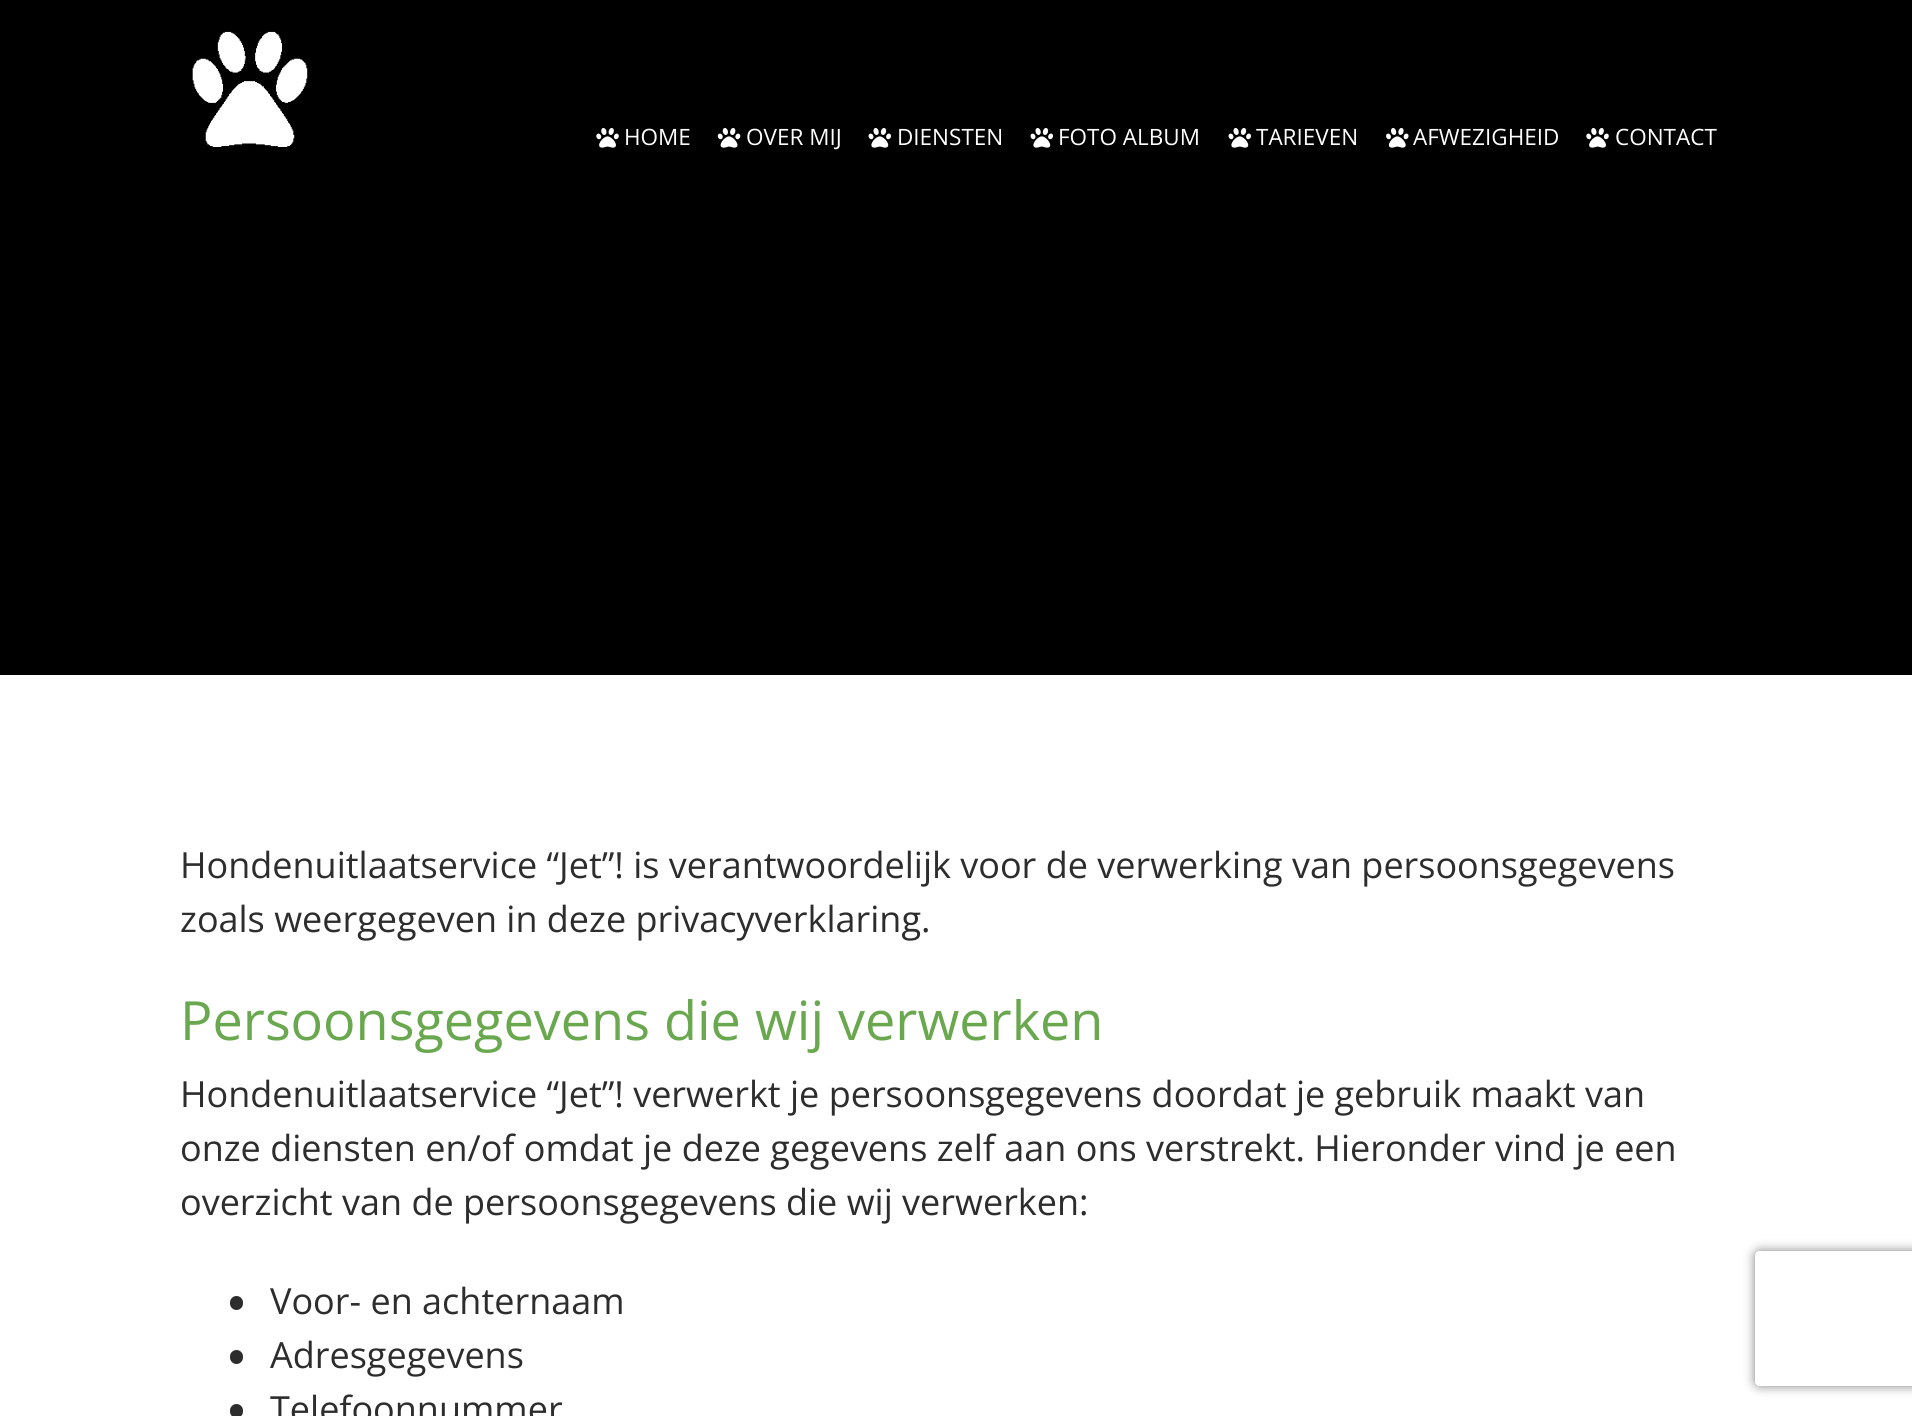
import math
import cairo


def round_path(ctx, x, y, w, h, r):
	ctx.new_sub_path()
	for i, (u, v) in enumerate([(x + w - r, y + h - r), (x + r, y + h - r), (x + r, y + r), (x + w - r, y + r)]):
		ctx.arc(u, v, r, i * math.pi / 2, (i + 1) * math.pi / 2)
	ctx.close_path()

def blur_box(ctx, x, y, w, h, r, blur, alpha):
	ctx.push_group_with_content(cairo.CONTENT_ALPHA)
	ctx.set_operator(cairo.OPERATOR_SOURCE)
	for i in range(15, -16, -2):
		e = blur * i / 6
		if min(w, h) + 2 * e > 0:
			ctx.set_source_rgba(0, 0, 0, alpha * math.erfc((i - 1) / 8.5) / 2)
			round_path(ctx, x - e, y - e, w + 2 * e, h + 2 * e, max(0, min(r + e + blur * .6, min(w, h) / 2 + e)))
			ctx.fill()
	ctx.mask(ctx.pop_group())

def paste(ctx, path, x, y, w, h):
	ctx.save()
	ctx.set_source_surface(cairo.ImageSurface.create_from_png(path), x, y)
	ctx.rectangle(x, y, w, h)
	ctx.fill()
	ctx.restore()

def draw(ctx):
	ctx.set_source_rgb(1, 1, 1)
	ctx.paint()
	ctx.set_source_rgb(0, 0, 0)
	ctx.rectangle(0, 0, 1912, 675)
	ctx.fill()
	paste(ctx, 'media/1.png', 192, 31, 116, 116)
	paste(ctx, 'media/2.png', 596, 128, 23, 20)
	ctx.select_font_face('Open Sans')
	ctx.set_font_size(22.5)
	ctx.set_source_rgb(1, 1, 1)
	ctx.move_to(624, 145)
	ctx.show_text('HOME')
	paste(ctx, 'media/3.png', 717, 128, 24, 20)
	ctx.move_to(746, 145)
	ctx.show_text('OVER MIJ')
	paste(ctx, 'media/4.png', 868, 128, 23, 20)
	ctx.move_to(897, 145)
	ctx.show_text('DIENSTEN')
	paste(ctx, 'media/4.png', 1030, 128, 23, 20)
	ctx.move_to(1058, 145)
	ctx.show_text('FOTO ALBUM')
	paste(ctx, 'media/4.png', 1228, 128, 23, 20)
	ctx.move_to(1256, 145)
	ctx.show_text('TARIEVEN')
	paste(ctx, 'media/5.png', 1386, 128, 23, 20)
	ctx.move_to(1413, 145)
	ctx.show_text('AFWEZIGHEID')
	paste(ctx, 'media/2.png', 1586, 128, 23, 20)
	ctx.move_to(1615, 145)
	ctx.show_text('CONTACT')
	ctx.set_font_size(36)
	ctx.set_source_rgb(0.176, 0.176, 0.176)
	ctx.move_to(180, 878)
	ctx.show_text('Hondenuitlaatservice “Jet”! is verantwoordelijk voor de verwerking van persoonsgegevens')
	ctx.move_to(180, 932)
	ctx.show_text('zoals weergegeven in deze privacyverklaring.')
	ctx.set_font_size(54)
	ctx.set_source_rgb(0.416, 0.659, 0.31)
	ctx.move_to(180, 1040)
	ctx.show_text('Persoonsgegevens die wij verwerken')
	ctx.set_font_size(36)
	ctx.set_source_rgb(0.176, 0.176, 0.176)
	for x, y, s in [
		(180, 1107, 'Hondenuitlaatservice “Jet”! verwerkt je persoonsgegevens doordat je gebruik maakt van'),
		(180, 1161, 'onze diensten en/of omdat je deze gegevens zelf aan ons verstrekt. Hieronder vind je een'),
		(180, 1215, 'overzicht van de persoonsgegevens die wij verwerken:'),
	]:
		ctx.move_to(x, y)
		ctx.show_text(s)
	round_path(ctx, 230, 1296, 13, 14, 6.5)
	ctx.fill()
	ctx.move_to(270, 1314)
	ctx.show_text('Voor- en achternaam')
	round_path(ctx, 230, 1350, 13, 14, 6.5)
	ctx.fill()
	ctx.move_to(270, 1368)
	ctx.show_text('Adresgegevens')
	round_path(ctx, 230, 1404, 13, 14, 6.5)
	ctx.fill()
	ctx.move_to(270, 1422)
	ctx.show_text('Telefoonnummer')
	ctx.save()
	ctx.set_fill_rule(cairo.FILL_RULE_EVEN_ODD)
	ctx.new_path()
	ctx.move_to(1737, 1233)
	ctx.line_to(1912, 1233)
	ctx.line_to(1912, 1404)
	ctx.line_to(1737, 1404)
	ctx.close_path()
	ctx.move_to(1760, 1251)
	ctx.line_to(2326, 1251)
	ctx.curve_to(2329, 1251, 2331, 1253, 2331, 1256)
	ctx.line_to(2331, 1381)
	ctx.curve_to(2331, 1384, 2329, 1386, 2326, 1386)
	ctx.line_to(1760, 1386)
	ctx.curve_to(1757, 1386, 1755, 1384, 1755, 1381)
	ctx.line_to(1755, 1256)
	ctx.curve_to(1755, 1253, 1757, 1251, 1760, 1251)
	ctx.close_path()
	ctx.clip()
	ctx.set_source_rgb(0.502, 0.502, 0.502)
	blur_box(ctx, 1755, 1251, 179, 135, 5, 5.5, 1)
	ctx.restore()


surface = cairo.ImageSurface(cairo.FORMAT_RGB24, 1912, 1416)
ctx = cairo.Context(surface)
options = cairo.FontOptions()
options.set_hint_metrics(cairo.HINT_METRICS_OFF)
options.set_hint_style(cairo.HINT_STYLE_NONE)
ctx.set_font_options(options)
ctx.set_miter_limit(4)
draw(ctx)
surface.write_to_png('image.png')
